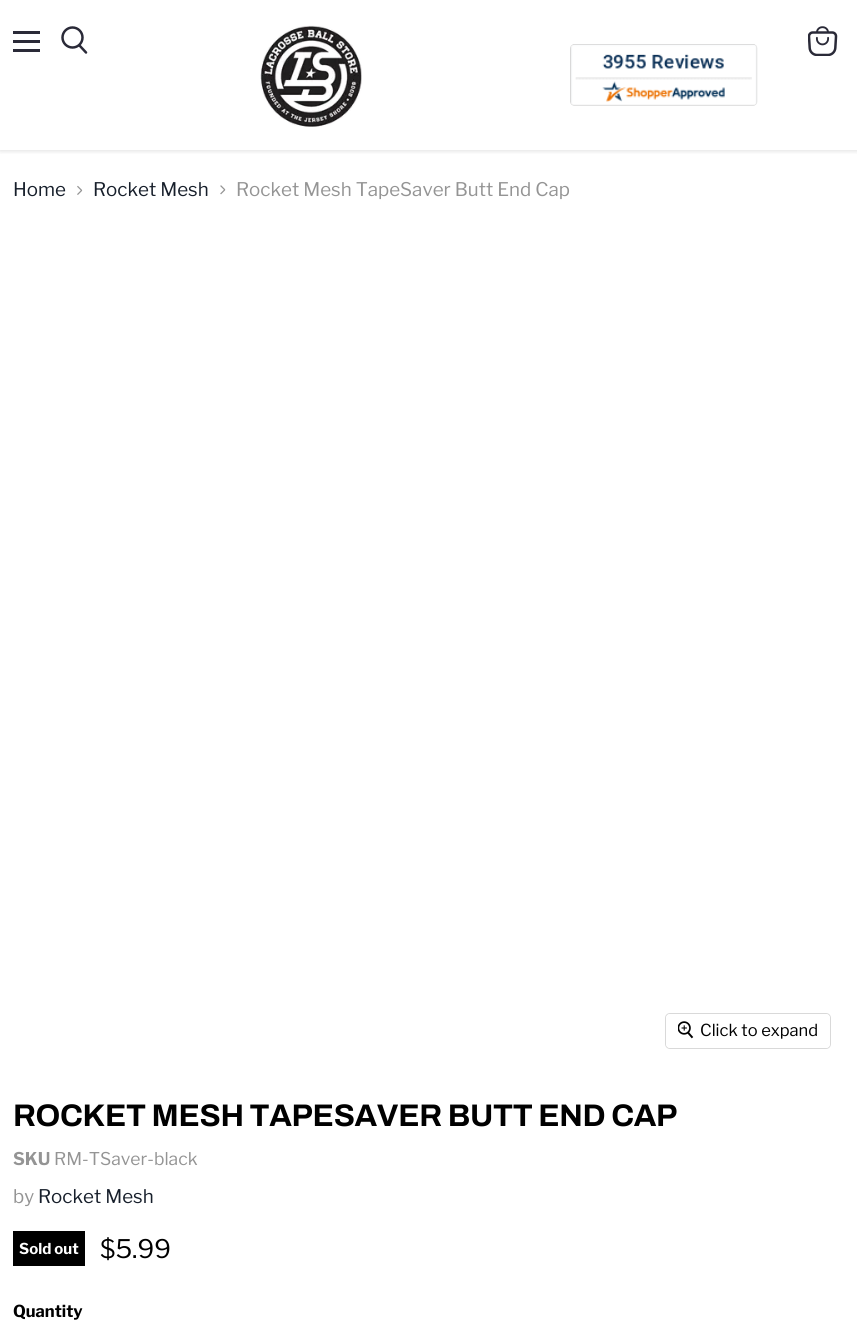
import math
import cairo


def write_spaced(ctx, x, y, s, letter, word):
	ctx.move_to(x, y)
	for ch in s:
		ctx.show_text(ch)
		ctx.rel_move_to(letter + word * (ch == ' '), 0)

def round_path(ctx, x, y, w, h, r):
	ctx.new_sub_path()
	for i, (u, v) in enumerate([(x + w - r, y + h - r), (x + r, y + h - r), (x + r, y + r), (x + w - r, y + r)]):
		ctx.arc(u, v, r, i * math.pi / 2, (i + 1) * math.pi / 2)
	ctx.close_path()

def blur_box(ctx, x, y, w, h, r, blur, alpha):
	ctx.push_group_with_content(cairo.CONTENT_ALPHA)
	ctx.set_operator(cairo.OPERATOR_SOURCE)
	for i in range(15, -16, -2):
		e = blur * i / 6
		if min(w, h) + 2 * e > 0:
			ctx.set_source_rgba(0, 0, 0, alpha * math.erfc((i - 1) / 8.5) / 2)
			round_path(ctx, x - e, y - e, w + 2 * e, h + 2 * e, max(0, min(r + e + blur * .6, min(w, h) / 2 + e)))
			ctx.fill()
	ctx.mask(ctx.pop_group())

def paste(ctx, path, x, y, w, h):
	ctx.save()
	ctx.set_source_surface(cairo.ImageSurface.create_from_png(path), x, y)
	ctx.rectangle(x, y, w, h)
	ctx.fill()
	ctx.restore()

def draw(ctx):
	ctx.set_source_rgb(1, 1, 1)
	ctx.paint()
	ctx.save()
	ctx.rectangle(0, 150, 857, 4)
	ctx.clip()
	ctx.set_source_rgb(0.502, 0.502, 0.502)
	blur_box(ctx, 0, 1, 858, 150, 0, 2.5, 0.25)
	ctx.restore()
	ctx.set_source_rgb(0.165, 0.165, 0.22)
	ctx.rectangle(13, 31, 27, 3)
	ctx.rectangle(13, 40, 27, 3)
	ctx.rectangle(13, 49, 27, 3)
	ctx.fill()
	ctx.new_path()
	ctx.move_to(86, 52.5)
	ctx.line_to(79.5, 45.5)
	ctx.set_line_width(2.5)
	ctx.set_line_cap(cairo.LINE_CAP_ROUND)
	ctx.stroke()
	ctx.arc(72.5, 37.5, 10, 0, 2 * math.pi)
	ctx.set_line_cap(cairo.LINE_CAP_BUTT)
	ctx.stroke()
	paste(ctx, 'media/1.png', 260, 25, 102, 102)
	paste(ctx, 'media/2.png', 570, 44, 188, 62)
	paste(ctx, 'media/3.png', 808, 26, 30, 30)
	ctx.select_font_face('Libre Franklin')
	ctx.set_font_size(18.75)
	ctx.set_source_rgb(0.09, 0.122, 0.169)
	ctx.move_to(13, 196)
	ctx.show_text('Home')
	paste(ctx, 'media/4.png', 77, 185, 6, 10)
	ctx.move_to(93, 196)
	ctx.show_text('Rocket Mesh')
	paste(ctx, 'media/5.png', 220, 185, 6, 10)
	ctx.set_source_rgb(0.58, 0.58, 0.58)
	ctx.move_to(236, 196)
	ctx.show_text('Rocket Mesh TapeSaver Butt End Cap')
	round_path(ctx, 665.5, 1013.5, 165, 35, 4.5)
	ctx.set_source_rgb(0.851, 0.851, 0.851)
	ctx.set_line_width(1)
	ctx.stroke()
	ctx.set_source_rgba(1, 1, 1, 0.9)
	round_path(ctx, 666, 1014, 164, 34, 4)
	ctx.fill()
	paste(ctx, 'media/6.png', 678, 1021, 16, 18)
	ctx.set_font_size(16.5)
	ctx.set_source_rgb(0, 0, 0)
	ctx.move_to(700, 1036)
	ctx.show_text('Click to expand')
	ctx.select_font_face('Archivo', cairo.FONT_SLANT_NORMAL, cairo.FONT_WEIGHT_BOLD)
	ctx.set_font_size(31.25)
	write_spaced(ctx, 13, 1126, 'ROCKET MESH TAPESAVER BUTT END CAP', -0.3, 0)
	ctx.select_font_face('Libre Franklin', cairo.FONT_SLANT_NORMAL, cairo.FONT_WEIGHT_BOLD)
	ctx.set_font_size(17.5)
	ctx.set_source_rgb(0.58, 0.58, 0.58)
	ctx.move_to(13, 1165)
	ctx.show_text('SKU')
	ctx.select_font_face('Libre Franklin')
	ctx.move_to(54, 1165)
	ctx.show_text('RM-TSaver-black')
	ctx.set_font_size(18.75)
	ctx.move_to(13, 1203)
	ctx.show_text('by')
	ctx.set_source_rgb(0.09, 0.122, 0.169)
	ctx.move_to(38, 1203)
	ctx.show_text('Rocket Mesh')
	ctx.set_source_rgb(0, 0, 0)
	ctx.rectangle(13, 1231, 72, 35)
	ctx.fill()
	ctx.select_font_face('Libre Franklin', cairo.FONT_SLANT_NORMAL, cairo.FONT_WEIGHT_BOLD)
	ctx.set_font_size(15)
	ctx.set_source_rgb(1, 1, 1)
	ctx.move_to(19, 1254)
	ctx.show_text('Sold out')
	ctx.select_font_face('Libre Franklin')
	ctx.set_font_size(25.5)
	ctx.set_source_rgb(0, 0, 0)
	ctx.move_to(100, 1258)
	ctx.show_text('$5.99')
	ctx.select_font_face('Libre Franklin', cairo.FONT_SLANT_NORMAL, cairo.FONT_WEIGHT_BOLD)
	ctx.set_font_size(16.5)
	ctx.move_to(13, 1317)
	ctx.show_text('Quantity')


surface = cairo.ImageSurface(cairo.FORMAT_RGB24, 857, 1335)
ctx = cairo.Context(surface)
options = cairo.FontOptions()
options.set_hint_metrics(cairo.HINT_METRICS_OFF)
options.set_hint_style(cairo.HINT_STYLE_NONE)
ctx.set_font_options(options)
ctx.set_miter_limit(4)
draw(ctx)
surface.write_to_png('image.png')
